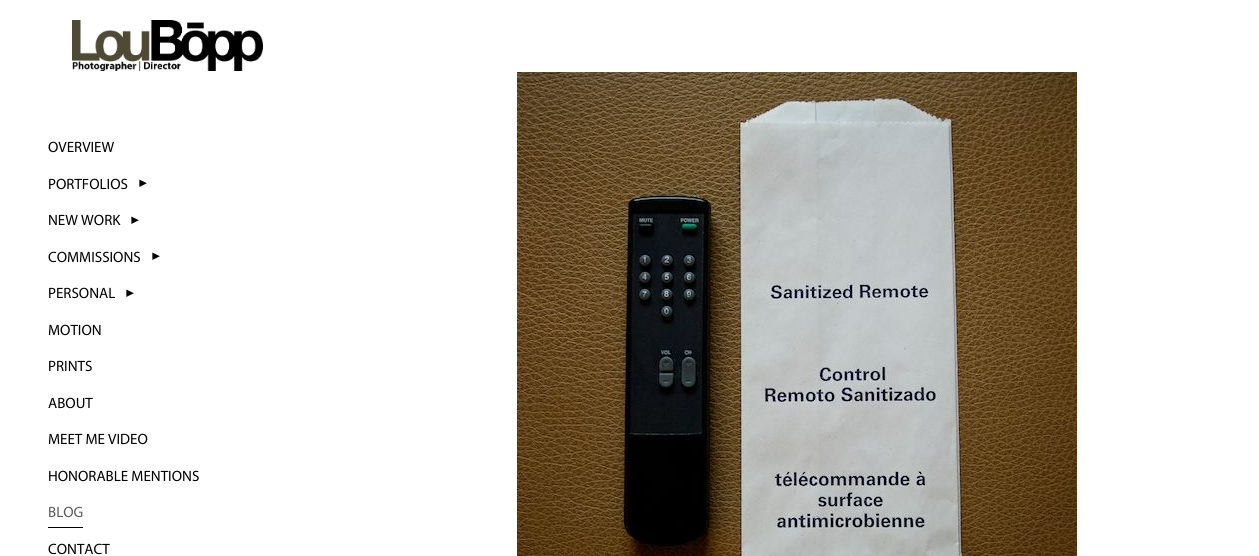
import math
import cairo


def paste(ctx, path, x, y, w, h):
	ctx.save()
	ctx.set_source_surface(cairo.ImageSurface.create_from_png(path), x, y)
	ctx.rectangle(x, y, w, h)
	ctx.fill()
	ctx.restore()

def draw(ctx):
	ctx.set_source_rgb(1, 1, 1)
	ctx.paint()
	paste(ctx, 'media/1.png', 72, 20, 191, 51)
	ctx.select_font_face('Myriad')
	ctx.set_font_size(15)
	ctx.set_source_rgb(0, 0, 0)
	ctx.move_to(48, 152)
	ctx.show_text('OVERVIEW')
	ctx.move_to(48, 189)
	ctx.show_text('PORTFOLIOS')
	ctx.select_font_face('DejaVu Sans')
	ctx.save()
	ctx.translate(147, 187)
	ctx.rotate(-90 * math.pi / 180)
	ctx.move_to(0, 0)
	ctx.show_text('▾')
	ctx.restore()
	ctx.select_font_face('Myriad')
	ctx.move_to(48, 225)
	ctx.show_text('NEW WORK')
	ctx.select_font_face('DejaVu Sans')
	ctx.save()
	ctx.translate(139, 224)
	ctx.rotate(-90 * math.pi / 180)
	ctx.move_to(0, 0)
	ctx.show_text('▾')
	ctx.restore()
	ctx.select_font_face('Myriad')
	ctx.move_to(48, 262)
	ctx.show_text('COMMISSIONS')
	ctx.select_font_face('DejaVu Sans')
	ctx.save()
	ctx.translate(160, 260)
	ctx.rotate(-90 * math.pi / 180)
	ctx.move_to(0, 0)
	ctx.show_text('▾')
	ctx.restore()
	ctx.select_font_face('Myriad')
	ctx.move_to(48, 298)
	ctx.show_text('PERSONAL')
	ctx.select_font_face('DejaVu Sans')
	ctx.save()
	ctx.translate(134, 297)
	ctx.rotate(-90 * math.pi / 180)
	ctx.move_to(0, 0)
	ctx.show_text('▾')
	ctx.restore()
	ctx.select_font_face('Myriad')
	for x, y, s in [
		(48, 335, 'MOTION'),
		(48, 371, 'PRINTS'),
		(48, 408, 'ABOUT'),
		(48, 444, 'MEET ME VIDEO'),
		(48, 481, 'HONORABLE MENTIONS'),
	]:
		ctx.move_to(x, y)
		ctx.show_text(s)
	ctx.set_source_rgb(0.365, 0.365, 0.365)
	ctx.move_to(48, 517)
	ctx.show_text('BLOG')
	ctx.set_source_rgb(0, 0, 0)
	ctx.rectangle(48, 527, 35, 1)
	ctx.fill()
	ctx.move_to(48, 554)
	ctx.show_text('CONTACT')
	paste(ctx, 'media/2.png', 517, 72, 560, 484)


surface = cairo.ImageSurface(cairo.FORMAT_RGB24, 1259, 556)
ctx = cairo.Context(surface)
options = cairo.FontOptions()
options.set_hint_metrics(cairo.HINT_METRICS_OFF)
options.set_hint_style(cairo.HINT_STYLE_NONE)
ctx.set_font_options(options)
ctx.set_miter_limit(4)
draw(ctx)
surface.write_to_png('image.png')
